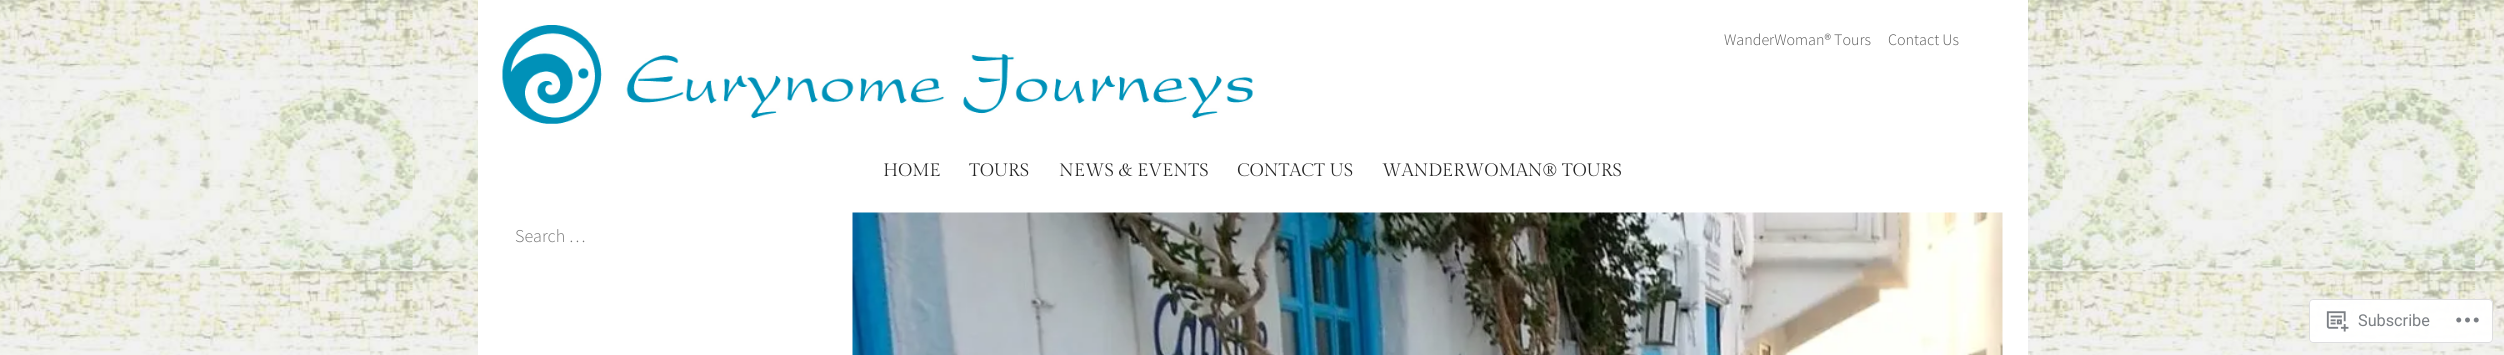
import math
import cairo


def round_path(ctx, x, y, w, h, r):
	ctx.new_sub_path()
	for i, (u, v) in enumerate([(x + w - r, y + h - r), (x + r, y + h - r), (x + r, y + r), (x + w - r, y + r)]):
		ctx.arc(u, v, r, i * math.pi / 2, (i + 1) * math.pi / 2)
	ctx.close_path()

def paste(ctx, path, x, y, w, h):
	ctx.save()
	ctx.set_source_surface(cairo.ImageSurface.create_from_png(path), x, y)
	ctx.rectangle(x, y, w, h)
	ctx.fill()
	ctx.restore()

def draw(ctx):
	ctx.set_source_rgb(1, 1, 1)
	ctx.paint()
	paste(ctx, 'media/1.png', 0, 0, 2504, 355)
	ctx.set_source_rgb(1, 1, 1)
	ctx.rectangle(478, 0, 1550, 355)
	ctx.fill()
	paste(ctx, 'media/2.png', 502, 25, 751, 99)
	ctx.select_font_face('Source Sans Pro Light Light')
	ctx.set_font_size(16)
	ctx.set_source_rgb(0.337, 0.337, 0.337)
	ctx.move_to(1724, 45)
	ctx.show_text('WanderWoman® Tours')
	ctx.move_to(1888, 45)
	ctx.show_text('Contact Us')
	ctx.select_font_face('Gilda Display')
	ctx.set_font_size(18)
	ctx.set_source_rgb(0.149, 0.149, 0.149)
	for x, y, s in [
		(883, 176, 'HOME'),
		(969, 176, 'TOURS'),
		(1059, 176, 'NEWS & EVENTS'),
		(1237, 176, 'CONTACT US'),
		(1382, 176, 'WANDERWOMAN® TOURS'),
	]:
		ctx.move_to(x, y)
		ctx.show_text(s)
	ctx.select_font_face('Source Sans Pro Light Light')
	ctx.set_source_rgb(0.459, 0.459, 0.459)
	ctx.move_to(515, 242)
	ctx.show_text('Search …')
	paste(ctx, 'media/3.png', 852, 212, 1151, 143)
	ctx.set_source_rgba(1, 1, 1, 0.98)
	round_path(ctx, 2309, 299, 184, 44, 4)
	ctx.fill()
	round_path(ctx, 2309.5, 299.5, 183, 43, 3.5)
	ctx.set_source_rgba(0.863, 0.863, 0.871, 0.98)
	ctx.set_line_width(1)
	ctx.stroke()
	paste(ctx, 'media/4.png', 2326, 311, 23, 21)
	ctx.select_font_face('Roboto')
	ctx.set_font_size(16.25)
	ctx.set_source_rgb(0.482, 0.498, 0.518)
	ctx.move_to(2358, 326)
	ctx.show_text('Subscribe')
	paste(ctx, 'media/5.png', 2456, 317, 23, 6)


surface = cairo.ImageSurface(cairo.FORMAT_RGB24, 2504, 355)
ctx = cairo.Context(surface)
options = cairo.FontOptions()
options.set_hint_metrics(cairo.HINT_METRICS_OFF)
options.set_hint_style(cairo.HINT_STYLE_NONE)
ctx.set_font_options(options)
ctx.set_miter_limit(4)
draw(ctx)
surface.write_to_png('image.png')
